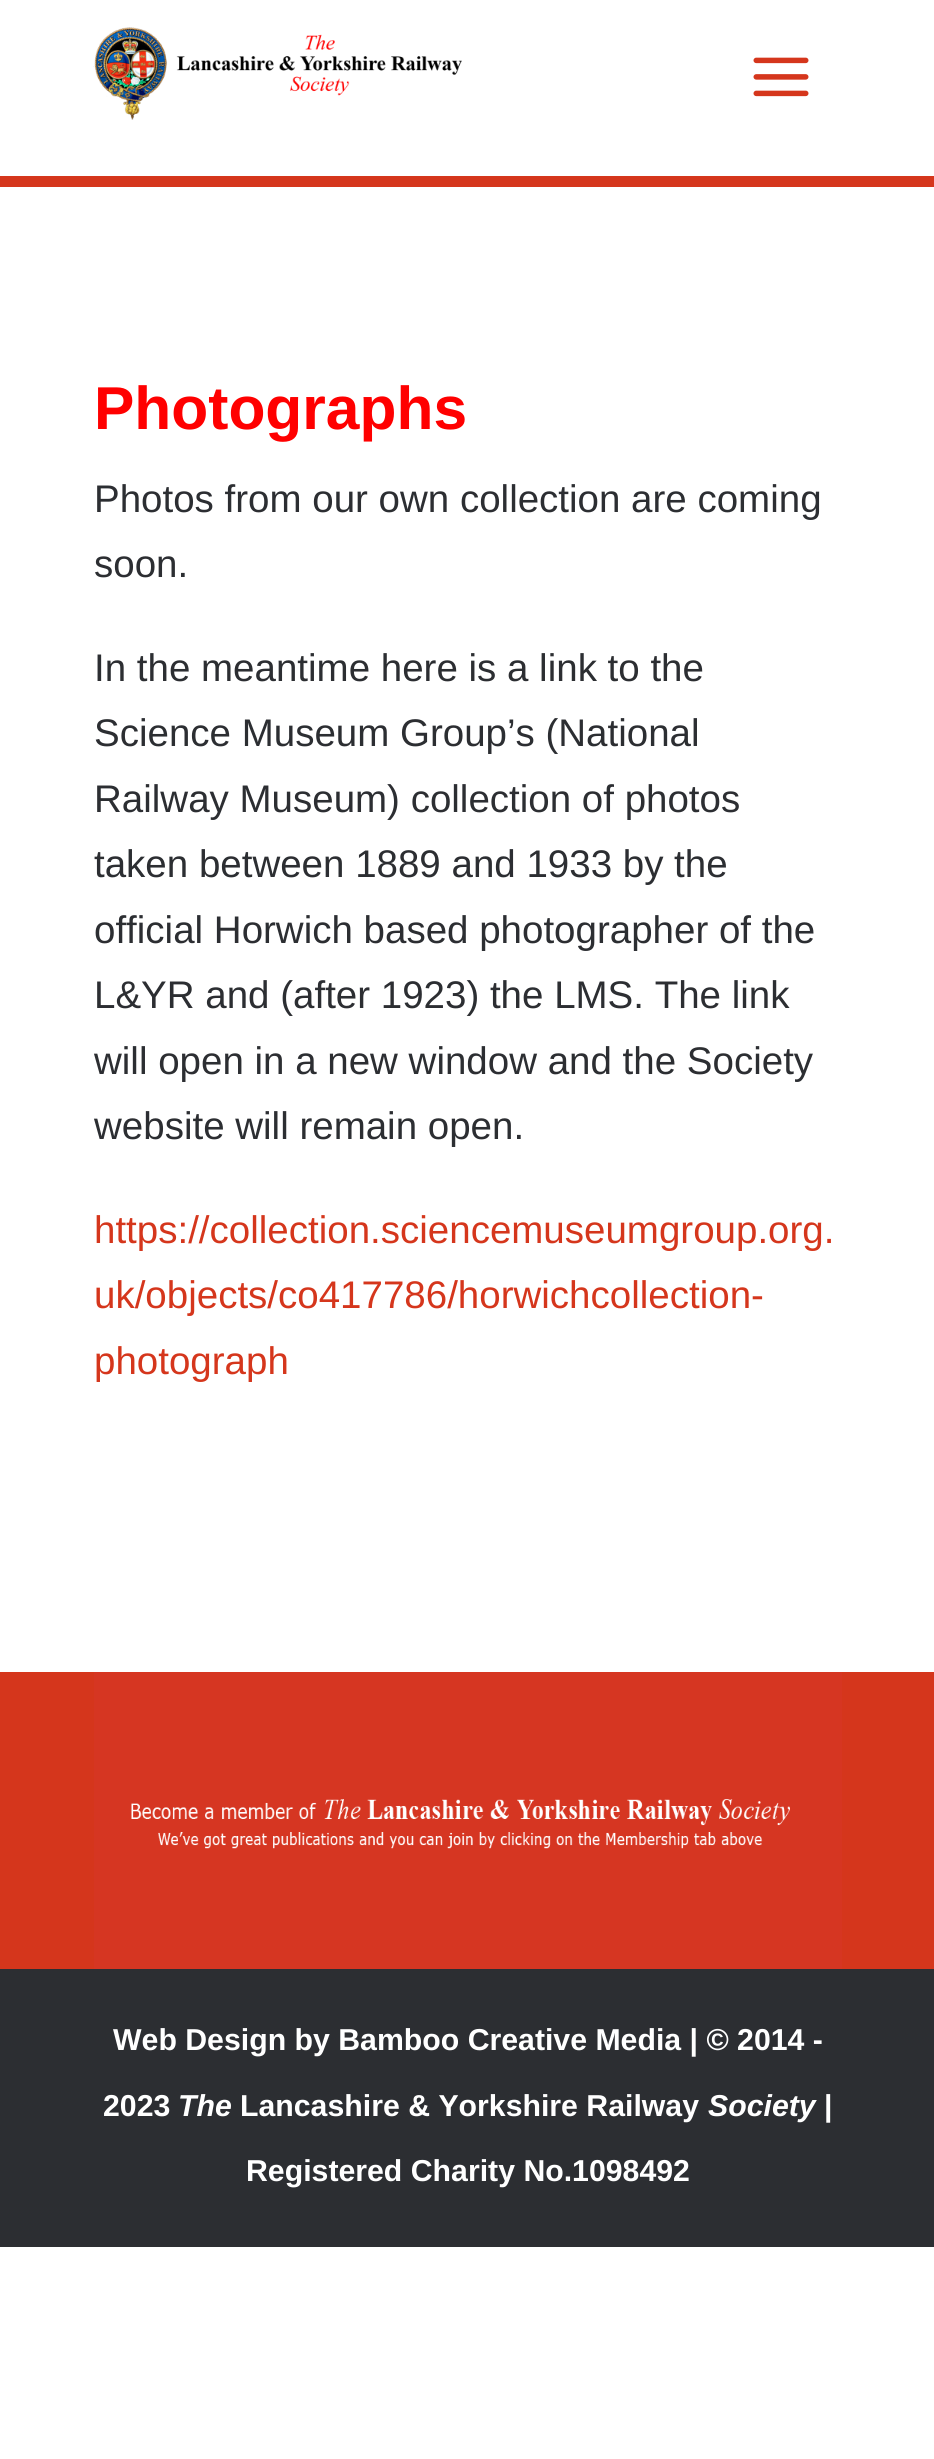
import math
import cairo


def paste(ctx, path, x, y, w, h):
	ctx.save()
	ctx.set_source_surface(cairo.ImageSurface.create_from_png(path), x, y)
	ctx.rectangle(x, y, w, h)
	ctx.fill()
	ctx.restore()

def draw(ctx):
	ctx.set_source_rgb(1, 1, 1)
	ctx.paint()
	paste(ctx, 'media/1.png', 93, 27, 369, 93)
	paste(ctx, 'media/2.png', 753, 57, 56, 40)
	ctx.set_source_rgb(0.835, 0.212, 0.11)
	ctx.rectangle(0, 176, 934, 11)
	ctx.fill()
	ctx.select_font_face('Liberation Sans', cairo.FONT_SLANT_NORMAL, cairo.FONT_WEIGHT_BOLD)
	ctx.set_font_size(60.5)
	ctx.set_source_rgb(1, 0, 0)
	ctx.move_to(94, 429)
	ctx.show_text('Photographs')
	ctx.select_font_face('Liberation Sans')
	ctx.set_font_size(38.5)
	ctx.set_source_rgb(0.173, 0.18, 0.196)
	for x, y, s in [
		(94, 512, 'Photos from our own collection are coming'),
		(94, 577, 'soon.'),
		(94, 681, 'In the meantime here is a link to the'),
		(94, 746, 'Science Museum Group’s (National'),
		(94, 812, 'Railway Museum) collection of photos'),
		(94, 877, 'taken between 1889 and 1933 by the'),
		(94, 943, 'official Horwich based photographer of the'),
		(94, 1008, 'L&YR and (after 1923) the LMS. The link'),
		(94, 1074, 'will open in a new window and the Society'),
		(94, 1139, 'website will remain open.'),
	]:
		ctx.move_to(x, y)
		ctx.show_text(s)
	ctx.set_source_rgb(0.835, 0.212, 0.11)
	for x, y, s in [
		(94, 1243, 'https://collection.sciencemuseumgroup.org.'),
		(94, 1308, 'uk/objects/co417786/horwichcollection-'),
		(94, 1374, 'photograph'),
	]:
		ctx.move_to(x, y)
		ctx.show_text(s)
	ctx.rectangle(0, 1672, 934, 297)
	ctx.fill()
	ctx.set_source_rgb(0.839, 0.212, 0.133)
	ctx.rectangle(94, 1672, 748, 297)
	ctx.fill()
	paste(ctx, 'media/3.png', 131, 1799, 659, 50)
	ctx.set_source_rgb(0.173, 0.18, 0.196)
	ctx.rectangle(0, 1969, 934, 278)
	ctx.fill()
	ctx.select_font_face('Liberation Sans', cairo.FONT_SLANT_NORMAL, cairo.FONT_WEIGHT_BOLD)
	ctx.set_font_size(30.25)
	ctx.set_source_rgb(1, 1, 1)
	ctx.move_to(113, 2050)
	ctx.show_text('Web Design by Bamboo Creative Media | © 2014 -')
	ctx.move_to(103, 2116)
	ctx.show_text('2023')
	ctx.select_font_face('Liberation Sans', cairo.FONT_SLANT_ITALIC, cairo.FONT_WEIGHT_BOLD)
	ctx.move_to(178, 2116)
	ctx.show_text('The')
	ctx.select_font_face('Liberation Sans', cairo.FONT_SLANT_NORMAL, cairo.FONT_WEIGHT_BOLD)
	ctx.move_to(240, 2116)
	ctx.show_text('Lancashire & Yorkshire Railway')
	ctx.select_font_face('Liberation Sans', cairo.FONT_SLANT_ITALIC, cairo.FONT_WEIGHT_BOLD)
	ctx.move_to(708, 2116)
	ctx.show_text('Society')
	ctx.select_font_face('Liberation Sans', cairo.FONT_SLANT_NORMAL, cairo.FONT_WEIGHT_BOLD)
	ctx.move_to(824, 2116)
	ctx.show_text('|')
	ctx.move_to(246, 2181)
	ctx.show_text('Registered Charity No.1098492')


surface = cairo.ImageSurface(cairo.FORMAT_RGB24, 934, 2459)
ctx = cairo.Context(surface)
options = cairo.FontOptions()
options.set_hint_metrics(cairo.HINT_METRICS_OFF)
options.set_hint_style(cairo.HINT_STYLE_NONE)
ctx.set_font_options(options)
ctx.set_miter_limit(4)
draw(ctx)
surface.write_to_png('image.png')
